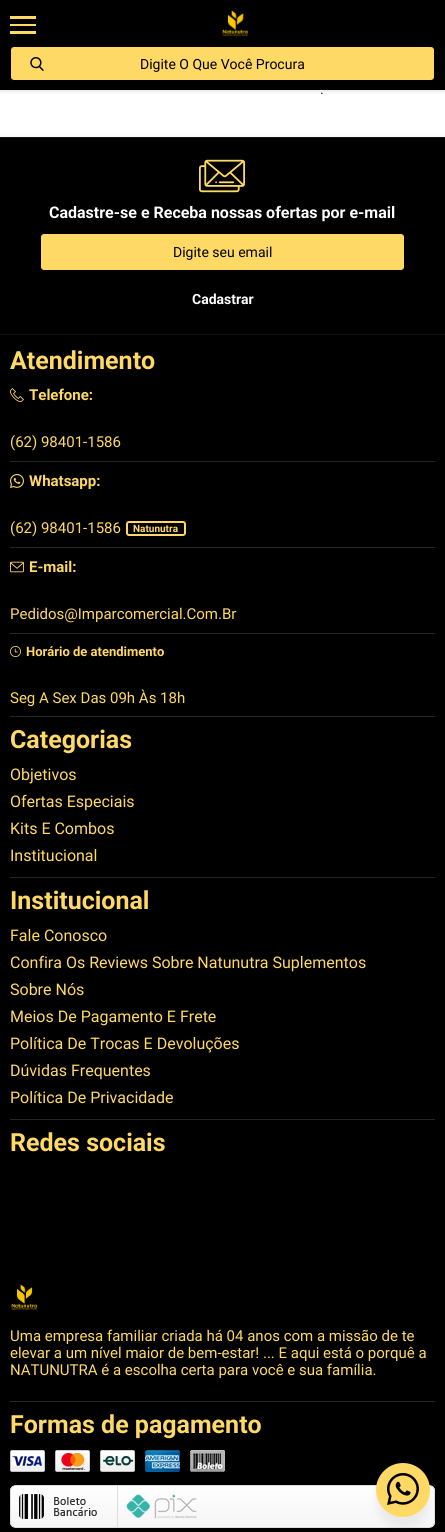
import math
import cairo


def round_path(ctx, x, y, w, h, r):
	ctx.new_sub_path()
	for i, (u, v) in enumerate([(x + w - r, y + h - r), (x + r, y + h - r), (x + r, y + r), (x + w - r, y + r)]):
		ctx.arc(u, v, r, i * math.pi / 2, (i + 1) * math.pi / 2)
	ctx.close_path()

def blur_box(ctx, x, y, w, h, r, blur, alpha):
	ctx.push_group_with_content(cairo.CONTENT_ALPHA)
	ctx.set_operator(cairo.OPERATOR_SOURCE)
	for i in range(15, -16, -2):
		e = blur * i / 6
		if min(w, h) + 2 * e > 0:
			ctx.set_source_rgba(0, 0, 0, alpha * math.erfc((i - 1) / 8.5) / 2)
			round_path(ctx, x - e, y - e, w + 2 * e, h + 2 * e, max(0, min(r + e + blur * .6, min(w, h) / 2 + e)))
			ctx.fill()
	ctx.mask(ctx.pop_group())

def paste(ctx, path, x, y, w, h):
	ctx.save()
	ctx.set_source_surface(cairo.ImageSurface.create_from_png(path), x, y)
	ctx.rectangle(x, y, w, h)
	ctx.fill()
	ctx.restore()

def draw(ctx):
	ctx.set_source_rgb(1, 1, 1)
	ctx.paint()
	ctx.set_source_rgb(0.322, 0.322, 0.322)
	blur_box(ctx, 0, 1, 445, 90, 0, 2, 0.2)
	ctx.set_source_rgb(0, 0, 0)
	ctx.rectangle(0, 0, 445, 90)
	ctx.fill()
	ctx.set_source_rgb(1, 0.851, 0.4)
	ctx.rectangle(10, 31, 26, 3)
	ctx.rectangle(10, 24, 26, 2)
	ctx.rectangle(10, 16, 26, 3)
	ctx.fill()
	paste(ctx, 'media/1.png', 222, 10, 26, 27)
	round_path(ctx, 10.5, 46.5, 424, 34, 3.5)
	ctx.fill_preserve()
	ctx.set_source_rgb(0, 0, 0)
	ctx.set_line_width(1)
	ctx.stroke()
	paste(ctx, 'media/2.png', 30, 57, 14, 14)
	ctx.select_font_face('Roboto')
	ctx.set_font_size(14)
	ctx.move_to(140, 69)
	ctx.show_text('Digite O Que Você Procura')
	ctx.set_source_rgb(0.192, 0.192, 0.192)
	ctx.move_to(320, 94)
	ctx.show_text('.')
	ctx.set_source_rgb(0.62, 0.62, 0.62)
	blur_box(ctx, 0, 137, 445, 198, 0, 2.5, 0.2)
	ctx.set_source_rgb(0, 0, 0)
	ctx.rectangle(0, 138, 445, 196)
	ctx.fill()
	ctx.set_source_rgb(0.075, 0.075, 0.075)
	ctx.rectangle(0, 137, 445, 1)
	ctx.rectangle(0, 334, 445, 1)
	ctx.fill()
	paste(ctx, 'media/3.png', 199, 159, 46, 34)
	ctx.select_font_face('Roboto', cairo.FONT_SLANT_NORMAL, cairo.FONT_WEIGHT_BOLD)
	ctx.set_font_size(16)
	ctx.set_source_rgb(1, 1, 1)
	ctx.move_to(49, 218)
	ctx.show_text('Cadastre-se e Receba nossas ofertas por e-mail')
	ctx.set_source_rgb(1, 0.851, 0.4)
	round_path(ctx, 40.5, 233.5, 364, 37, 3.5)
	ctx.fill_preserve()
	ctx.set_source_rgb(0, 0, 0)
	ctx.stroke()
	ctx.select_font_face('Roboto')
	ctx.set_font_size(14)
	ctx.move_to(173, 257)
	ctx.show_text('Digite seu email')
	ctx.select_font_face('Roboto', cairo.FONT_SLANT_NORMAL, cairo.FONT_WEIGHT_BOLD)
	ctx.set_source_rgb(1, 1, 1)
	ctx.move_to(192, 304)
	ctx.show_text('Cadastrar')
	ctx.set_source_rgb(0, 0, 0)
	ctx.rectangle(0, 335, 445, 1197)
	ctx.fill()
	ctx.set_source_rgb(0.145, 0.145, 0.145)
	ctx.rectangle(10, 716, 425, 1)
	ctx.fill()
	ctx.set_font_size(25)
	ctx.set_source_rgb(1, 0.851, 0.4)
	ctx.move_to(10, 369)
	ctx.show_text('Atendimento')
	paste(ctx, 'media/4.png', 10, 388, 14, 14)
	ctx.set_font_size(15)
	ctx.move_to(29, 400)
	ctx.show_text('Telefone:')
	ctx.select_font_face('Roboto')
	ctx.move_to(10, 447)
	ctx.show_text('(62) 98401-1586')
	ctx.set_source_rgb(0.145, 0.145, 0.145)
	ctx.rectangle(10, 461, 425, 1)
	ctx.fill()
	paste(ctx, 'media/5.png', 10, 474, 14, 14)
	ctx.select_font_face('Roboto', cairo.FONT_SLANT_NORMAL, cairo.FONT_WEIGHT_BOLD)
	ctx.set_source_rgb(1, 0.851, 0.4)
	ctx.move_to(29, 486)
	ctx.show_text('Whatsapp:')
	ctx.select_font_face('Roboto')
	ctx.move_to(10, 533)
	ctx.show_text('(62) 98401-1586')
	round_path(ctx, 127, 522, 58, 13, 2)
	ctx.set_line_width(2)
	ctx.stroke()
	ctx.select_font_face('Roboto', cairo.FONT_SLANT_NORMAL, cairo.FONT_WEIGHT_BOLD)
	ctx.set_font_size(10)
	ctx.move_to(133, 532)
	ctx.show_text('Natunutra')
	ctx.set_source_rgb(0.145, 0.145, 0.145)
	ctx.rectangle(10, 547, 425, 1)
	ctx.fill()
	paste(ctx, 'media/6.png', 10, 561, 14, 12)
	ctx.set_font_size(15)
	ctx.set_source_rgb(1, 0.851, 0.4)
	ctx.move_to(29, 572)
	ctx.show_text('E-mail:')
	ctx.select_font_face('Roboto')
	ctx.move_to(10, 619)
	ctx.show_text('Pedidos@Imparcomercial.Com.Br')
	ctx.set_source_rgb(0.145, 0.145, 0.145)
	ctx.rectangle(10, 633, 425, 1)
	ctx.fill()
	paste(ctx, 'media/7.png', 10, 646, 11, 11)
	ctx.select_font_face('Roboto', cairo.FONT_SLANT_NORMAL, cairo.FONT_WEIGHT_BOLD)
	ctx.set_font_size(13)
	ctx.set_source_rgb(1, 0.851, 0.4)
	ctx.move_to(26, 656)
	ctx.show_text('Horário de atendimento')
	ctx.select_font_face('Roboto')
	ctx.set_font_size(15)
	ctx.move_to(10, 703)
	ctx.show_text('Seg A Sex Das 09h Às 18h')
	ctx.set_source_rgb(0.145, 0.145, 0.145)
	ctx.rectangle(10, 877, 425, 1)
	ctx.fill()
	ctx.select_font_face('Roboto', cairo.FONT_SLANT_NORMAL, cairo.FONT_WEIGHT_BOLD)
	ctx.set_font_size(25)
	ctx.set_source_rgb(1, 0.851, 0.4)
	ctx.move_to(10, 748)
	ctx.show_text('Categorias')
	ctx.select_font_face('Roboto')
	ctx.set_font_size(16)
	for x, y, s in [
		(10, 780, 'Objetivos'),
		(10, 807, 'Ofertas Especiais'),
		(10, 834, 'Kits E Combos'),
		(10, 861, 'Institucional'),
	]:
		ctx.move_to(x, y)
		ctx.show_text(s)
	ctx.set_source_rgb(0.145, 0.145, 0.145)
	ctx.rectangle(10, 1119, 425, 1)
	ctx.fill()
	ctx.select_font_face('Roboto', cairo.FONT_SLANT_NORMAL, cairo.FONT_WEIGHT_BOLD)
	ctx.set_font_size(25)
	ctx.set_source_rgb(1, 0.851, 0.4)
	ctx.move_to(10, 909)
	ctx.show_text('Institucional')
	ctx.select_font_face('Roboto')
	ctx.set_font_size(16)
	for x, y, s in [
		(10, 941, 'Fale Conosco'),
		(10, 968, 'Confira Os Reviews Sobre Natunutra Suplementos'),
		(10, 995, 'Sobre Nós'),
		(10, 1022, 'Meios De Pagamento E Frete'),
		(10, 1049, 'Política De Trocas E Devoluções'),
		(10, 1076, 'Dúvidas Frequentes'),
		(10, 1103, 'Política De Privacidade'),
	]:
		ctx.move_to(x, y)
		ctx.show_text(s)
	ctx.select_font_face('Roboto', cairo.FONT_SLANT_NORMAL, cairo.FONT_WEIGHT_BOLD)
	ctx.set_font_size(25)
	ctx.move_to(10, 1151)
	ctx.show_text('Redes sociais')
	ctx.set_source_rgb(0.145, 0.145, 0.145)
	ctx.rectangle(10, 1401, 425, 1)
	ctx.fill()
	paste(ctx, 'media/8.png', 11, 1284, 26, 26)
	ctx.select_font_face('Roboto')
	ctx.set_font_size(15)
	ctx.set_source_rgb(1, 0.851, 0.4)
	for x, y, s in [
		(10, 1341, 'Uma empresa familiar criada há 04 anos com a missão de te'),
		(10, 1358, 'elevar a um nível maior de bem-estar! ... E aqui está o porquê a'),
		(10, 1375, 'NATUNUTRA é a escolha certa para você e sua família.'),
	]:
		ctx.move_to(x, y)
		ctx.show_text(s)
	ctx.select_font_face('Roboto', cairo.FONT_SLANT_NORMAL, cairo.FONT_WEIGHT_BOLD)
	ctx.set_font_size(25)
	ctx.move_to(10, 1433)
	ctx.show_text('Formas de pagamento')
	paste(ctx, 'media/9.png', 10, 1450, 35, 22)
	paste(ctx, 'media/10.png', 55, 1450, 35, 22)
	paste(ctx, 'media/11.png', 100, 1450, 35, 22)
	paste(ctx, 'media/12.png', 145, 1450, 35, 22)
	paste(ctx, 'media/13.png', 190, 1450, 35, 22)
	ctx.save()
	round_path(ctx, 10, 1485, 425, 43, 6)
	ctx.clip()
	gradient = cairo.LinearGradient(223, 1486, 223, 1527)
	gradient.add_color_stop_rgba(0, 1, 1, 1, 1)
	gradient.add_color_stop_rgba(1, 0.961, 0.961, 0.961, 1)
	ctx.set_source(gradient)
	ctx.rectangle(10, 1486, 425, 41)
	ctx.fill()
	ctx.restore()
	round_path(ctx, 10.5, 1485.5, 424, 42, 5.5)
	ctx.set_source_rgb(0.867, 0.867, 0.867)
	ctx.set_line_width(1)
	ctx.stroke()
	paste(ctx, 'media/14.png', 19, 1494, 78, 25)
	ctx.rectangle(117, 1486, 1, 41)
	ctx.fill()
	paste(ctx, 'media/15.png', 126, 1494, 71, 25)
	ctx.set_source_rgb(0.404, 0.404, 0.404)
	blur_box(ctx, 376, 1473, 54, 54, 27, 4, 0.1)
	ctx.set_source_rgb(1, 0.851, 0.4)
	ctx.arc(403, 1490, 27, 0, 2 * math.pi)
	ctx.fill()
	paste(ctx, 'media/16.png', 387, 1473, 32, 32)


surface = cairo.ImageSurface(cairo.FORMAT_RGB24, 445, 1532)
ctx = cairo.Context(surface)
options = cairo.FontOptions()
options.set_hint_metrics(cairo.HINT_METRICS_OFF)
options.set_hint_style(cairo.HINT_STYLE_NONE)
ctx.set_font_options(options)
ctx.set_miter_limit(4)
draw(ctx)
surface.write_to_png('image.png')
